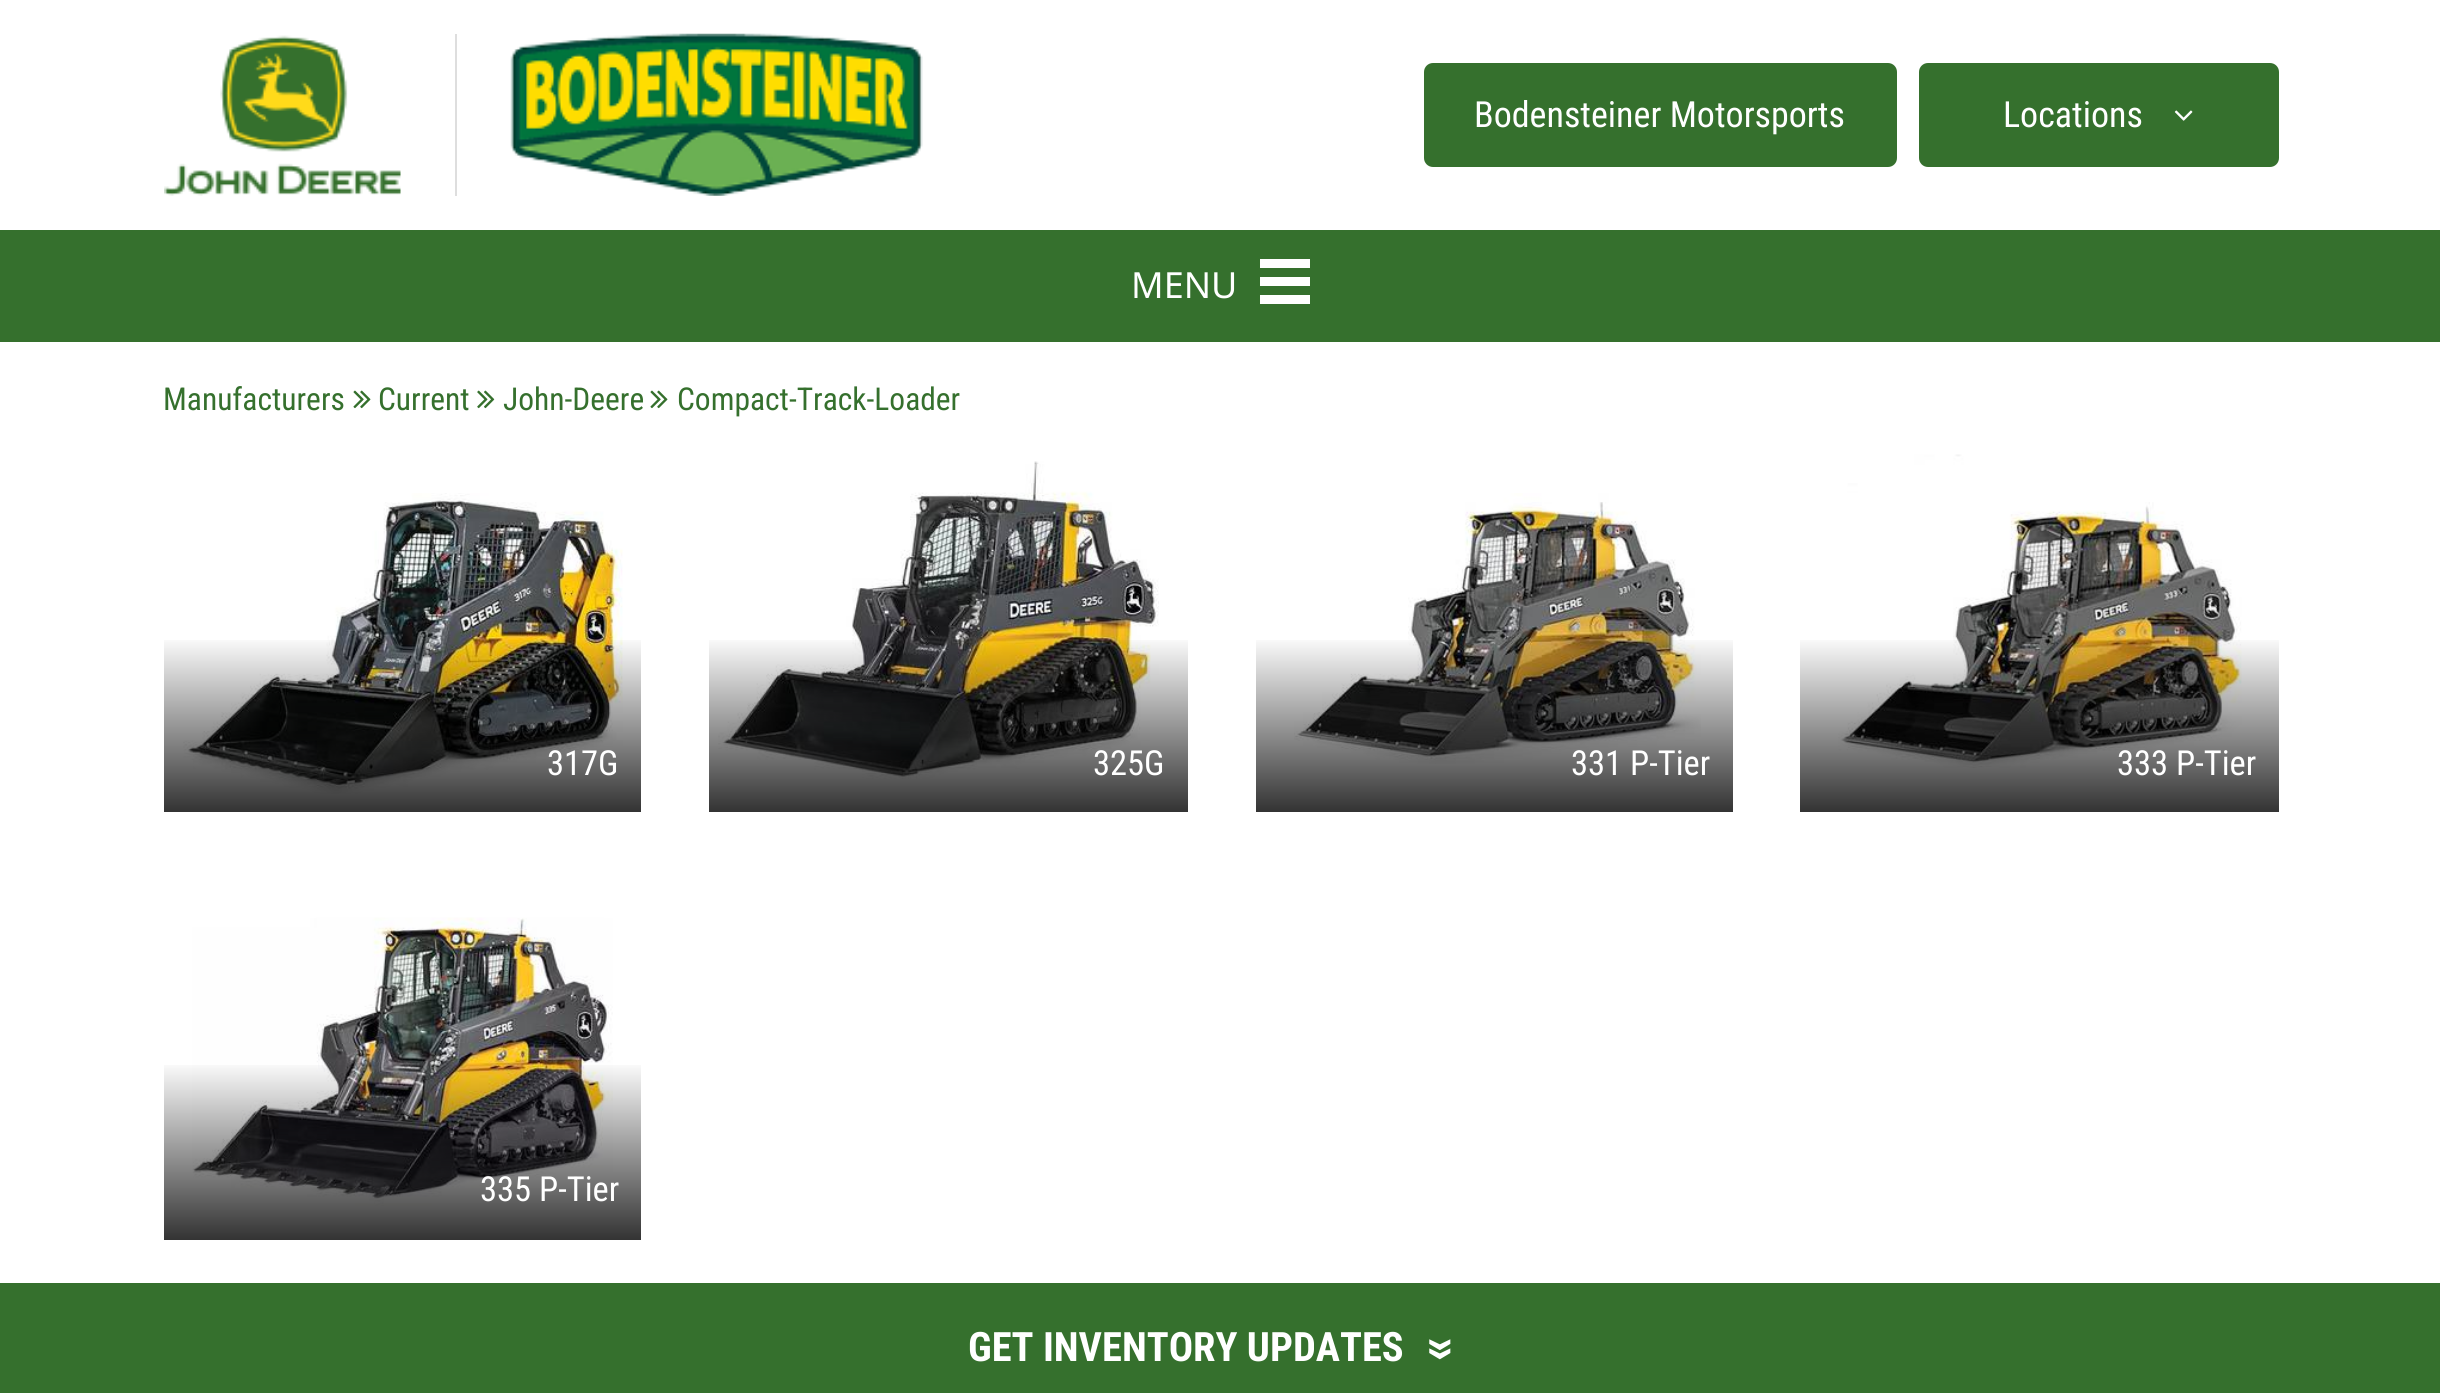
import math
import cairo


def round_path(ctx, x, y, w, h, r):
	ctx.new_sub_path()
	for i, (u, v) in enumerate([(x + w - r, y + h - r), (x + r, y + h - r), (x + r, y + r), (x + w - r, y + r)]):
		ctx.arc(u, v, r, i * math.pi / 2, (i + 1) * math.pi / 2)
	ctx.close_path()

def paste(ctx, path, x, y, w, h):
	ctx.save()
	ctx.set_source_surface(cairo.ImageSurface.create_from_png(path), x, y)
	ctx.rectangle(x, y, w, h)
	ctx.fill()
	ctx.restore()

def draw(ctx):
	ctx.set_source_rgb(1, 1, 1)
	ctx.paint()
	paste(ctx, 'media/1.png', 164, 35, 237, 161)
	ctx.set_source_rgb(0.871, 0.871, 0.871)
	ctx.rectangle(455, 34, 2, 162)
	ctx.fill()
	paste(ctx, 'media/2.png', 510, 33, 413, 163)
	ctx.set_source_rgb(0.208, 0.439, 0.176)
	round_path(ctx, 1424, 63, 473, 104, 9)
	ctx.fill()
	ctx.select_font_face('Roboto Condensed')
	ctx.set_font_size(36)
	ctx.set_source_rgb(1, 1, 1)
	ctx.move_to(1474, 127)
	ctx.show_text('Bodensteiner Motorsports')
	ctx.set_source_rgb(0.208, 0.439, 0.176)
	round_path(ctx, 1919, 63, 360, 104, 9)
	ctx.fill()
	ctx.set_source_rgb(1, 1, 1)
	ctx.move_to(2003, 127)
	ctx.show_text('Locations')
	paste(ctx, 'media/3.png', 2174, 110, 19, 11)
	ctx.set_source_rgb(0.208, 0.439, 0.176)
	ctx.rectangle(0, 230, 2440, 112)
	ctx.fill()
	ctx.select_font_face('Noto Sans')
	ctx.set_source_rgb(1, 1, 1)
	ctx.move_to(1131, 298)
	ctx.show_text('MENU')
	ctx.rectangle(1260, 277, 50, 9)
	ctx.rectangle(1260, 259, 50, 9)
	ctx.rectangle(1260, 295, 50, 9)
	ctx.fill()
	ctx.select_font_face('Roboto Condensed')
	ctx.set_font_size(31.5)
	ctx.set_source_rgb(0.208, 0.439, 0.176)
	ctx.move_to(163, 410)
	ctx.show_text('Manufacturers')
	paste(ctx, 'media/4.png', 353, 390, 18, 19)
	ctx.move_to(378, 410)
	ctx.show_text('Current')
	paste(ctx, 'media/5.png', 477, 390, 18, 19)
	ctx.move_to(503, 410)
	ctx.show_text('John-Deere')
	paste(ctx, 'media/4.png', 650, 390, 18, 19)
	ctx.move_to(677, 410)
	ctx.show_text('Compact-Track-Loader')
	paste(ctx, 'media/6.png', 183, 493, 440, 301)
	gradient = cairo.LinearGradient(403, 635, 403, 812)
	gradient.add_color_stop_rgba(0, 0, 0, 0, 0)
	gradient.add_color_stop_rgba(1, 0, 0, 0, 0.8)
	ctx.set_source(gradient)
	ctx.rectangle(164, 640, 477, 172)
	ctx.fill()
	ctx.set_font_size(34.5)
	ctx.set_source_rgb(1, 1, 1)
	ctx.move_to(547, 775)
	ctx.show_text('317G')
	paste(ctx, 'media/7.png', 718, 461, 441, 318)
	gradient = cairo.LinearGradient(948, 635, 948, 812)
	gradient.add_color_stop_rgba(0, 0, 0, 0, 0)
	gradient.add_color_stop_rgba(1, 0, 0, 0, 0.8)
	ctx.set_source(gradient)
	ctx.rectangle(709, 640, 479, 172)
	ctx.fill()
	ctx.set_source_rgb(1, 1, 1)
	ctx.move_to(1093, 775)
	ctx.show_text('325G')
	paste(ctx, 'media/8.png', 1294, 493, 407, 271)
	gradient = cairo.LinearGradient(1494, 635, 1494, 812)
	gradient.add_color_stop_rgba(0, 0, 0, 0, 0)
	gradient.add_color_stop_rgba(1, 0, 0, 0, 0.8)
	ctx.set_source(gradient)
	ctx.rectangle(1256, 640, 477, 172)
	ctx.fill()
	ctx.set_source_rgb(1, 1, 1)
	ctx.move_to(1571, 775)
	ctx.show_text('331 P-Tier')
	paste(ctx, 'media/9.png', 1838, 454, 404, 314)
	gradient = cairo.LinearGradient(2040, 635, 2040, 812)
	gradient.add_color_stop_rgba(0, 0, 0, 0, 0)
	gradient.add_color_stop_rgba(1, 0, 0, 0, 0.8)
	ctx.set_source(gradient)
	ctx.rectangle(1800, 640, 479, 172)
	ctx.fill()
	ctx.set_source_rgb(1, 1, 1)
	ctx.move_to(2117, 775)
	ctx.show_text('333 P-Tier')
	paste(ctx, 'media/10.png', 192, 917, 421, 289)
	gradient = cairo.LinearGradient(403, 1060, 403, 1240)
	gradient.add_color_stop_rgba(0, 0, 0, 0, 0)
	gradient.add_color_stop_rgba(1, 0, 0, 0, 0.8)
	ctx.set_source(gradient)
	ctx.rectangle(164, 1065, 477, 175)
	ctx.fill()
	ctx.set_source_rgb(1, 1, 1)
	ctx.move_to(480, 1201)
	ctx.show_text('335 P-Tier')
	ctx.set_source_rgb(0.208, 0.439, 0.176)
	ctx.rectangle(0, 1283, 2440, 110)
	ctx.fill()
	ctx.select_font_face('Roboto Condensed', cairo.FONT_SLANT_NORMAL, cairo.FONT_WEIGHT_BOLD)
	ctx.set_font_size(40.5)
	ctx.set_source_rgb(1, 1, 1)
	ctx.move_to(968, 1361)
	ctx.show_text('GET INVENTORY UPDATES')
	ctx.set_font_size(54)
	ctx.save()
	ctx.translate(1426, 1337)
	ctx.rotate(90 * math.pi / 180)
	ctx.move_to(0, 0)
	ctx.show_text('»')
	ctx.restore()


surface = cairo.ImageSurface(cairo.FORMAT_RGB24, 2440, 1393)
ctx = cairo.Context(surface)
options = cairo.FontOptions()
options.set_hint_metrics(cairo.HINT_METRICS_OFF)
options.set_hint_style(cairo.HINT_STYLE_NONE)
ctx.set_font_options(options)
ctx.set_miter_limit(4)
draw(ctx)
surface.write_to_png('image.png')
